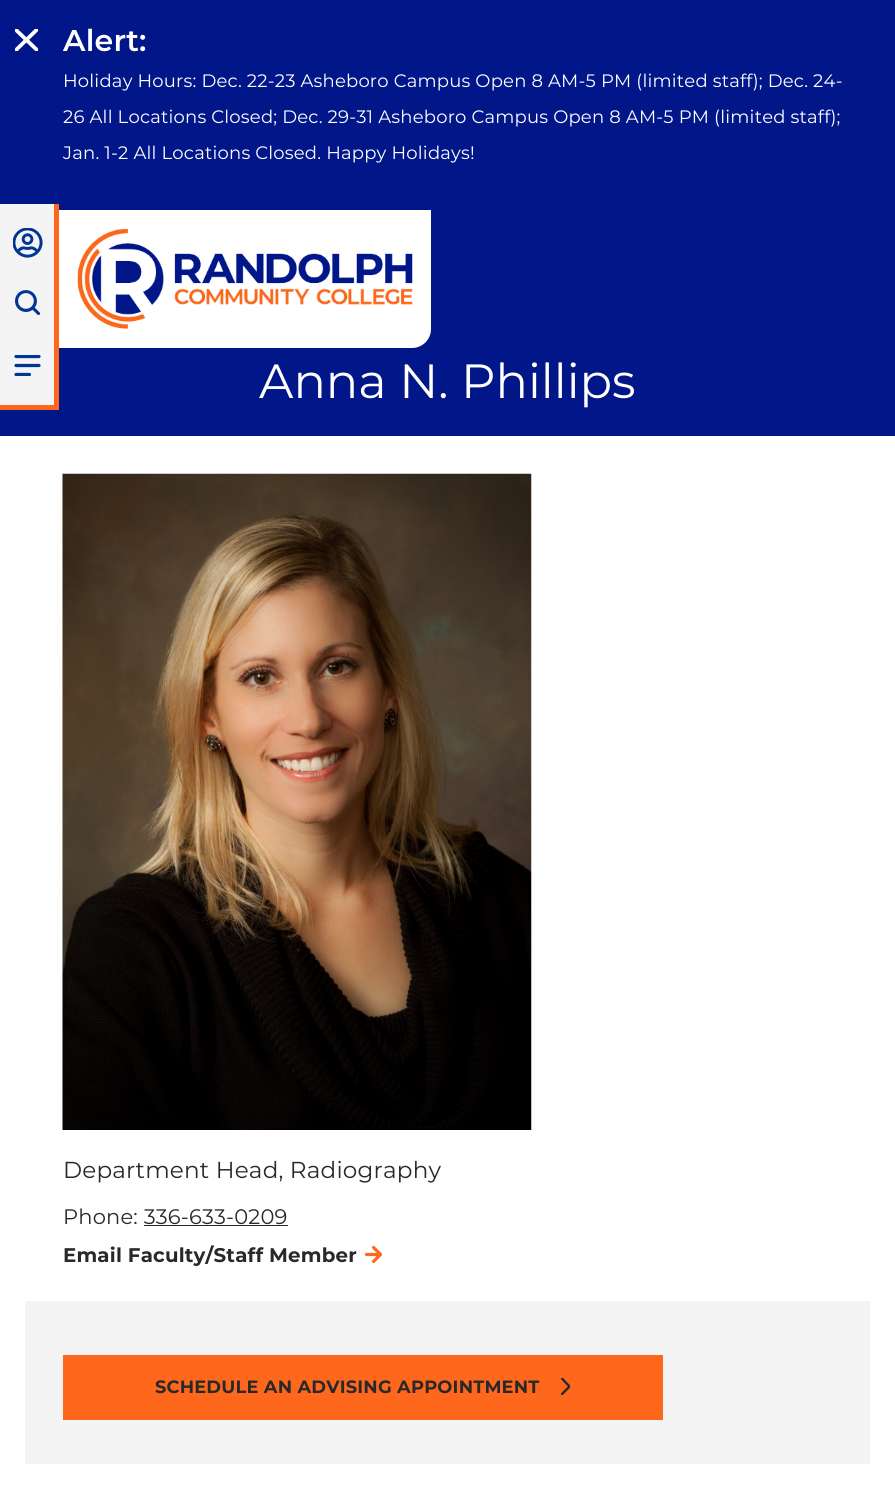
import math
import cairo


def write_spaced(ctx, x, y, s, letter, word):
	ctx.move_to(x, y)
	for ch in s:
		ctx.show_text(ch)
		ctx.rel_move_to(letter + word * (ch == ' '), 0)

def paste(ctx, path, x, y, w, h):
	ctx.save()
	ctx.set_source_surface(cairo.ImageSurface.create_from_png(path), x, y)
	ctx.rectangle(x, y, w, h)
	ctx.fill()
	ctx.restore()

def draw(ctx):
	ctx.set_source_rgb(1, 1, 1)
	ctx.paint()
	ctx.set_source_rgb(0, 0.086, 0.537)
	ctx.rectangle(0, 0, 895, 436)
	ctx.fill()
	ctx.set_source_rgb(0.957, 0.957, 0.957)
	ctx.rectangle(0, 204, 54, 201)
	ctx.fill()
	ctx.set_source_rgb(1, 0.404, 0.114)
	ctx.rectangle(54, 204, 5, 206)
	ctx.rectangle(0, 405, 59, 5)
	ctx.fill()
	ctx.save()
	ctx.rectangle(15, 29, 23, 22)
	ctx.clip()
	ctx.new_path()
	ctx.move_to(15, 29)
	ctx.line_to(37.5, 50.5)
	ctx.move_to(37.5, 29)
	ctx.line_to(15, 51)
	ctx.set_source_rgb(1, 1, 1)
	ctx.set_line_width(3.8)
	ctx.set_line_cap(cairo.LINE_CAP_ROUND)
	ctx.stroke()
	ctx.restore()
	paste(ctx, 'media/1.png', 13, 228, 30, 30)
	paste(ctx, 'media/2.png', 15, 290, 25, 25)
	ctx.save()
	ctx.rectangle(14, 355, 27, 21)
	ctx.clip()
	ctx.new_path()
	ctx.move_to(16, 356.5)
	ctx.line_to(39, 356.5)
	ctx.set_source_rgb(0, 0.208, 0.584)
	ctx.set_line_width(3.2)
	ctx.set_line_cap(cairo.LINE_CAP_ROUND)
	ctx.stroke()
	ctx.restore()
	ctx.new_path()
	ctx.move_to(16, 365.5)
	ctx.line_to(39, 365.5)
	ctx.set_source_rgb(0, 0.208, 0.584)
	ctx.set_line_width(3.2)
	ctx.set_line_cap(cairo.LINE_CAP_ROUND)
	ctx.stroke()
	ctx.save()
	ctx.rectangle(14, 355, 27, 21)
	ctx.clip()
	ctx.new_path()
	ctx.move_to(16, 374.5)
	ctx.line_to(29.5, 374.5)
	ctx.stroke()
	ctx.restore()
	ctx.select_font_face('Montserrat SemiBold')
	ctx.set_font_size(30)
	ctx.set_source_rgb(1, 1, 1)
	write_spaced(ctx, 63, 51, 'Alert:', 0.2, 0)
	ctx.select_font_face('Montserrat')
	ctx.set_font_size(18)
	for x, y, s in [
		(63, 87, 'Holiday Hours: Dec. 22-23 Asheboro Campus Open 8 AM-5 PM (limited staff); Dec. 24-'),
		(63, 123, '26 All Locations Closed; Dec. 29-31 Asheboro Campus Open 8 AM-5 PM (limited staff);'),
		(63, 159, 'Jan. 1-2 All Locations Closed. Happy Holidays!'),
	]:
		write_spaced(ctx, x, y, s, 0.2, 0)
	ctx.new_path()
	ctx.move_to(59, 210)
	ctx.line_to(431, 210)
	ctx.line_to(431, 329)
	ctx.curve_to(431, 339.5, 422.5, 348, 412, 348)
	ctx.line_to(59, 348)
	ctx.close_path()
	ctx.fill()
	paste(ctx, 'media/3.png', 77, 228, 336, 101)
	ctx.set_font_size(48)
	ctx.move_to(259, 398)
	ctx.show_text('Anna N. Phillips')
	paste(ctx, 'media/4.png', 62, 473, 470, 657)
	ctx.set_font_size(23.1)
	ctx.set_source_rgb(0.161, 0.161, 0.161)
	write_spaced(ctx, 63, 1178, 'Department Head, Radiography', 0.2, 0)
	ctx.set_font_size(21)
	write_spaced(ctx, 63, 1224, 'Phone: 336-633-0209', 0.2, 0)
	ctx.rectangle(144, 1225, 144, 1)
	ctx.fill()
	ctx.select_font_face('Montserrat', cairo.FONT_SLANT_NORMAL, cairo.FONT_WEIGHT_BOLD)
	ctx.set_font_size(19.75)
	write_spaced(ctx, 63, 1262, 'Email Faculty/Staff Member', 0.2, 0)
	ctx.new_path()
	ctx.move_to(373.5, 1247.5)
	ctx.line_to(380.5, 1254.5)
	ctx.line_to(373.5, 1261.5)
	ctx.set_source_rgb(1, 0.404, 0.114)
	ctx.set_line_join(cairo.LINE_JOIN_ROUND)
	ctx.stroke()
	ctx.new_path()
	ctx.move_to(366.5, 1254.5)
	ctx.line_to(378.5, 1254.5)
	ctx.set_line_join(cairo.LINE_JOIN_MITER)
	ctx.stroke()
	ctx.set_source_rgb(0.957, 0.957, 0.957)
	ctx.rectangle(25, 1301, 845, 163)
	ctx.fill()
	ctx.set_source_rgb(1, 0.404, 0.114)
	ctx.rectangle(63, 1355, 600, 65)
	ctx.fill()
	ctx.set_font_size(17.8)
	ctx.set_source_rgb(0.161, 0.161, 0.161)
	write_spaced(ctx, 155, 1393, 'SCHEDULE AN ADVISING APPOINTMENT', 0.2, 0)
	ctx.save()
	ctx.rectangle(561, 1378, 9, 17)
	ctx.clip()
	ctx.new_path()
	ctx.move_to(561, 1377.5)
	ctx.line_to(569.5, 1386.5)
	ctx.line_to(561, 1395)
	ctx.set_line_width(2.4)
	ctx.set_line_cap(cairo.LINE_CAP_BUTT)
	ctx.stroke()
	ctx.restore()


surface = cairo.ImageSurface(cairo.FORMAT_RGB24, 895, 1485)
ctx = cairo.Context(surface)
options = cairo.FontOptions()
options.set_hint_metrics(cairo.HINT_METRICS_OFF)
options.set_hint_style(cairo.HINT_STYLE_NONE)
ctx.set_font_options(options)
ctx.set_miter_limit(4)
draw(ctx)
surface.write_to_png('image.png')
